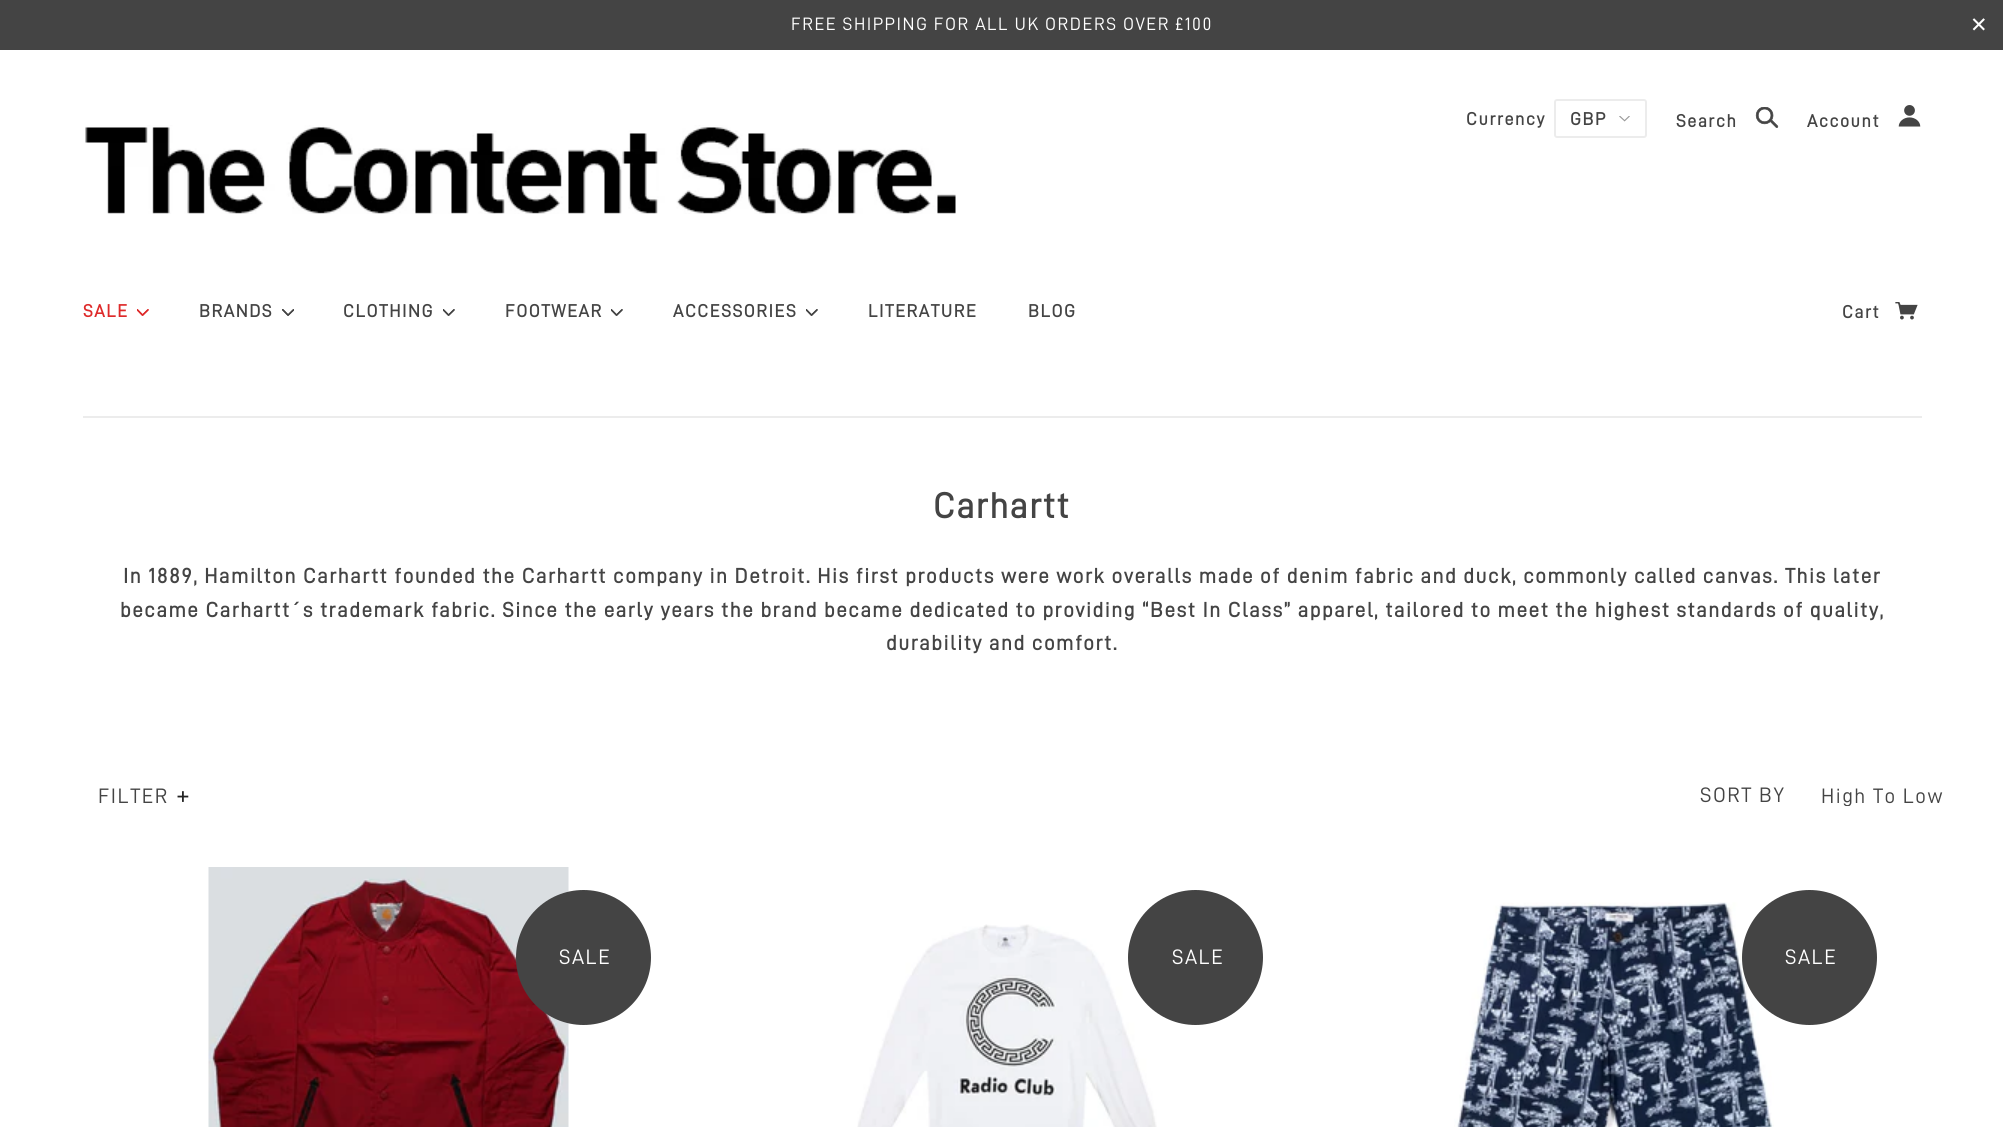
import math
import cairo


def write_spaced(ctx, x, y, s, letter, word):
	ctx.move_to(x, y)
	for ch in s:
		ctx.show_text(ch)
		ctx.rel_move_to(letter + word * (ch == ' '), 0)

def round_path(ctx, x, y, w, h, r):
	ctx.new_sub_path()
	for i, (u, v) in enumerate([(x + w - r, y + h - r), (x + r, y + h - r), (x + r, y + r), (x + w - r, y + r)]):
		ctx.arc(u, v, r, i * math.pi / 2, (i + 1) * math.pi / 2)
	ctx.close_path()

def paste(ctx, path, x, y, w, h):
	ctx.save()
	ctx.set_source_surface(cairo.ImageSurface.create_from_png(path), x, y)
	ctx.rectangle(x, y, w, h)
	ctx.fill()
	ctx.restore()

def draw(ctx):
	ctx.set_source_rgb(1, 1, 1)
	ctx.paint()
	ctx.set_source_rgb(0.267, 0.267, 0.267)
	ctx.rectangle(0, 0, 2003, 50)
	ctx.fill()
	ctx.select_font_face('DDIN')
	ctx.set_font_size(18)
	ctx.set_source_rgb(1, 1, 1)
	write_spaced(ctx, 791, 30, 'FREE SHIPPING FOR ALL UK ORDERS OVER £100', 1.5, 0)
	ctx.select_font_face('DejaVu Sans')
	ctx.set_font_size(21)
	write_spaced(ctx, 1970, 32, '✕', 1.5, 0)
	ctx.select_font_face('DDIN', cairo.FONT_SLANT_NORMAL, cairo.FONT_WEIGHT_BOLD)
	ctx.set_font_size(18)
	ctx.set_source_rgb(0.267, 0.267, 0.267)
	write_spaced(ctx, 1466, 125, 'Currency', 1.5, 0)
	paste(ctx, 'media/1.png', 1619, 116, 11, 6)
	round_path(ctx, 1555, 100, 91, 37, 2)
	ctx.set_source_rgb(0.922, 0.922, 0.922)
	ctx.stroke()
	ctx.set_source_rgb(0.267, 0.267, 0.267)
	write_spaced(ctx, 1570, 125, 'GBP', 1.5, 0)
	write_spaced(ctx, 1676, 127, 'Search', 1.5, 0)
	paste(ctx, 'media/2.png', 1755, 107, 24, 21)
	write_spaced(ctx, 1807, 127, 'Account', 1.5, 0)
	paste(ctx, 'media/3.png', 1898, 105, 23, 22)
	paste(ctx, 'media/4.png', 85, 125, 871, 89)
	ctx.set_source_rgb(0.871, 0.165, 0.165)
	write_spaced(ctx, 83, 317, 'SALE', 1.5, 0)
	paste(ctx, 'media/5.png', 137, 309, 12, 7)
	ctx.set_source_rgb(0.267, 0.267, 0.267)
	write_spaced(ctx, 199, 317, 'BRANDS', 1.5, 0)
	paste(ctx, 'media/6.png', 282, 309, 12, 7)
	write_spaced(ctx, 343, 317, 'CLOTHING', 1.5, 0)
	paste(ctx, 'media/7.png', 443, 309, 12, 7)
	write_spaced(ctx, 505, 317, 'FOOTWEAR', 1.5, 0)
	paste(ctx, 'media/7.png', 611, 309, 12, 7)
	write_spaced(ctx, 673, 317, 'ACCESSORIES', 1.5, 0)
	paste(ctx, 'media/7.png', 806, 309, 12, 7)
	for x, y, s in [
		(868, 317, 'LITERATURE'),
		(1028, 317, 'BLOG'),
		(1842, 318, 'Cart'),
	]:
		write_spaced(ctx, x, y, s, 1.5, 0)
	paste(ctx, 'media/8.png', 1895, 302, 23, 18)
	ctx.set_source_rgb(0.922, 0.922, 0.922)
	ctx.rectangle(83, 416, 1839, 2)
	ctx.fill()
	ctx.set_font_size(36)
	ctx.set_source_rgb(0.267, 0.267, 0.267)
	write_spaced(ctx, 933, 518, 'Carhartt', 1.5, 0)
	ctx.set_font_size(21.05)
	for x, y, s in [
		(123, 583, 'In 1889, Hamilton Carhartt founded the Carhartt company in Detroit. His first products were work overalls made of denim fabric and duck, commonly called canvas. This later'),
		(120, 617, 'became Carhartt´s trademark fabric. Since the early years the brand became dedicated to providing “Best In Class” apparel, tailored to meet the highest standards of quality,'),
		(886, 650, 'durability and comfort.'),
	]:
		write_spaced(ctx, x, y, s, 1.5, 0)
	ctx.select_font_face('DDIN')
	ctx.set_font_size(21)
	write_spaced(ctx, 98, 803, 'FILTER', 1.5, 0)
	ctx.set_font_size(27)
	ctx.set_source_rgb(0.133, 0.133, 0.133)
	write_spaced(ctx, 176, 804, '+', 1.5, 0)
	ctx.set_font_size(21)
	ctx.set_source_rgb(0.267, 0.267, 0.267)
	write_spaced(ctx, 1700, 802, 'SORT BY', 1.5, 0)
	ctx.save()
	ctx.rectangle(1821, 785, 123, 21)
	ctx.clip()
	write_spaced(ctx, 1821, 803, 'High To Low', 1.5, 0)
	ctx.restore()
	paste(ctx, 'media/9.png', 208, 867, 361, 260)
	ctx.arc(583.5, 957.5, 67.5, 0, 2 * math.pi)
	ctx.fill()
	ctx.set_source_rgb(1, 1, 1)
	write_spaced(ctx, 559, 964, 'SALE', 1.5, 0)
	paste(ctx, 'media/10.png', 857, 924, 300, 203)
	ctx.set_source_rgb(0.267, 0.267, 0.267)
	ctx.arc(1195.5, 957.5, 67.5, 0, 2 * math.pi)
	ctx.fill()
	ctx.set_source_rgb(1, 1, 1)
	write_spaced(ctx, 1172, 964, 'SALE', 1.5, 0)
	paste(ctx, 'media/11.png', 1454, 902, 320, 225)
	ctx.set_source_rgb(0.267, 0.267, 0.267)
	ctx.arc(1809.5, 957.5, 67.5, 0, 2 * math.pi)
	ctx.fill()
	ctx.set_source_rgb(1, 1, 1)
	write_spaced(ctx, 1785, 964, 'SALE', 1.5, 0)


surface = cairo.ImageSurface(cairo.FORMAT_RGB24, 2003, 1127)
ctx = cairo.Context(surface)
options = cairo.FontOptions()
options.set_hint_metrics(cairo.HINT_METRICS_OFF)
options.set_hint_style(cairo.HINT_STYLE_NONE)
ctx.set_font_options(options)
ctx.set_miter_limit(4)
draw(ctx)
surface.write_to_png('image.png')
